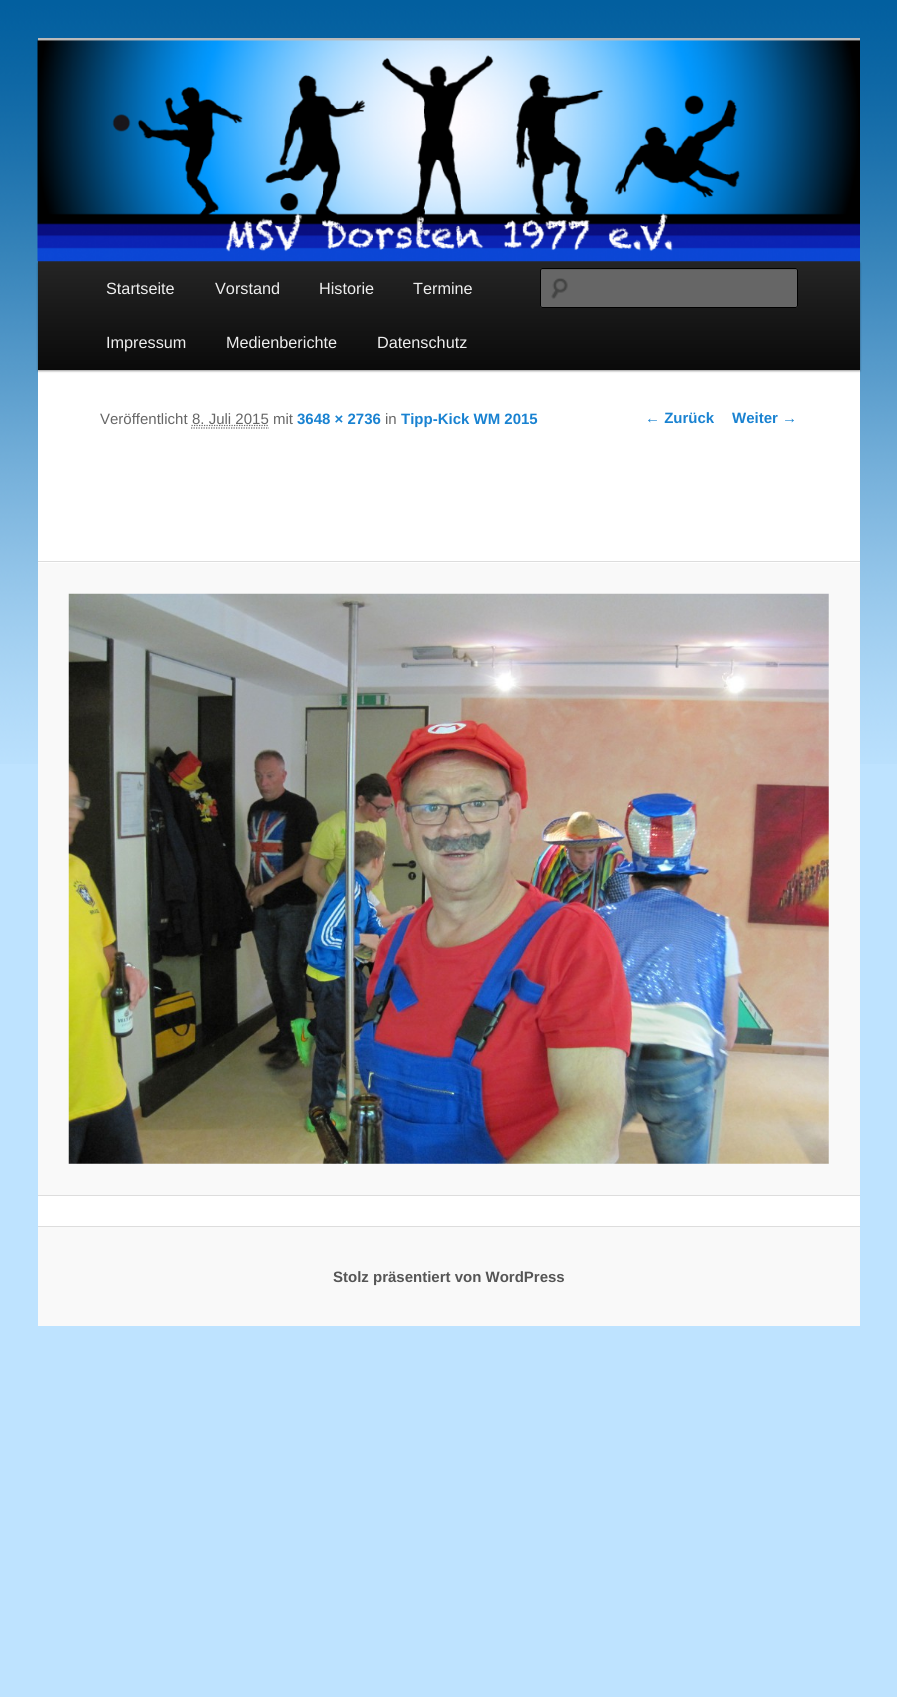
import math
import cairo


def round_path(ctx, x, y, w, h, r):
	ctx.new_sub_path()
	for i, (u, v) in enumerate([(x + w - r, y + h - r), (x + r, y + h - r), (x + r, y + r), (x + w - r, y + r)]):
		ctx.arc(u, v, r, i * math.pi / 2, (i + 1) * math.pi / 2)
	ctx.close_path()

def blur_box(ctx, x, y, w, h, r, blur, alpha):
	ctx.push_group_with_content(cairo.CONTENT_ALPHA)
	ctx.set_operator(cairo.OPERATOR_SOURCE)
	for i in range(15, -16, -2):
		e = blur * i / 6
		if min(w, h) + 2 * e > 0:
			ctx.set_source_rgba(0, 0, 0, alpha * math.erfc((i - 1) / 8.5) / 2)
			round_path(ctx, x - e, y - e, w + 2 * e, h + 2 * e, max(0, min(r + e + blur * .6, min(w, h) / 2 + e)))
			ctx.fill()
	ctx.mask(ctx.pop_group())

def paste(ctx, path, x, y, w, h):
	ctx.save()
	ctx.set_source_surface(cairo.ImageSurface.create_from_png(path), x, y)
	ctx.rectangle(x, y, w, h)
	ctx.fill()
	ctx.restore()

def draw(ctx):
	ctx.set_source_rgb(0.745, 0.89, 1)
	ctx.paint()
	paste(ctx, 'media/1.png', 0, 0, 897, 764)
	ctx.set_source_rgb(1, 1, 1)
	ctx.rectangle(38, 370, 822, 856)
	ctx.fill()
	ctx.set_source_rgb(0.733, 0.733, 0.733)
	ctx.rectangle(38, 38, 822, 3)
	ctx.fill()
	ctx.set_source_rgb(0, 0, 0)
	blur_box(ctx, 38, 263, 822, 108, 0, 1, 0.4)
	gradient = cairo.LinearGradient(449, 261, 449, 370)
	gradient.add_color_stop_rgba(0, 0.145, 0.145, 0.145, 1)
	gradient.add_color_stop_rgba(1, 0.039, 0.039, 0.039, 1)
	ctx.set_source(gradient)
	ctx.rectangle(38, 261, 822, 109)
	ctx.fill()
	paste(ctx, 'media/2.png', 37, 40, 823, 222)
	ctx.select_font_face('Liberation Sans')
	ctx.set_font_size(16.25)
	ctx.set_source_rgb(0.933, 0.933, 0.933)
	for x, y, s in [
		(106, 294, 'Startseite'),
		(215, 294, 'Vorstand'),
		(319, 294, 'Historie'),
		(413, 294, 'Termine'),
		(106, 348, 'Impressum'),
		(226, 348, 'Medienberichte'),
		(377, 348, 'Datenschutz'),
	]:
		ctx.move_to(x, y)
		ctx.show_text(s)
	ctx.set_source_rgb(0.4, 0.4, 0.4)
	round_path(ctx, 540, 268, 258, 40, 2.5)
	ctx.fill()
	paste(ctx, 'media/3.png', 551, 278, 17, 21)
	ctx.set_source_rgb(0.361, 0.361, 0.361)
	ctx.new_path()
	ctx.move_to(542, 270)
	ctx.line_to(795, 270)
	ctx.line_to(796, 271)
	ctx.line_to(796, 269)
	ctx.line_to(542, 269)
	ctx.curve_to(541, 269, 541, 270, 541, 271)
	ctx.close_path()
	ctx.fill()
	round_path(ctx, 540.5, 268.5, 257, 39, 2)
	ctx.set_source_rgb(0, 0, 0)
	ctx.set_line_width(1)
	ctx.stroke()
	ctx.set_font_size(15)
	ctx.set_source_rgb(0.4, 0.4, 0.4)
	ctx.move_to(100, 424)
	ctx.show_text('Veröffentlicht')
	ctx.new_path()
	ctx.move_to(191.5, 425.5)
	ctx.line_to(268.5, 425.5)
	ctx.set_line_width(1.2)
	ctx.set_dash([1.25, 1.25])
	ctx.stroke()
	ctx.move_to(192, 424)
	ctx.show_text('8. Juli 2015 mit')
	ctx.new_path()
	ctx.move_to(191, 428)
	ctx.line_to(269, 428)
	ctx.stroke()
	ctx.select_font_face('Liberation Sans', cairo.FONT_SLANT_NORMAL, cairo.FONT_WEIGHT_BOLD)
	ctx.set_source_rgb(0.098, 0.51, 0.82)
	ctx.move_to(297, 424)
	ctx.show_text('3648 × 2736')
	ctx.select_font_face('Liberation Sans')
	ctx.set_source_rgb(0.4, 0.4, 0.4)
	ctx.move_to(385, 424)
	ctx.show_text('in')
	ctx.select_font_face('Liberation Sans', cairo.FONT_SLANT_NORMAL, cairo.FONT_WEIGHT_BOLD)
	ctx.set_source_rgb(0.098, 0.51, 0.82)
	ctx.move_to(401, 424)
	ctx.show_text('Tipp-Kick WM 2015')
	ctx.set_source_rgb(0.976, 0.976, 0.976)
	ctx.rectangle(38, 563, 822, 632)
	ctx.fill()
	ctx.set_source_rgb(0.867, 0.867, 0.867)
	ctx.rectangle(38, 561, 822, 1)
	ctx.rectangle(38, 1195, 822, 1)
	ctx.fill()
	paste(ctx, 'media/4.png', 68, 593, 761, 571)
	ctx.set_source_rgb(0.098, 0.51, 0.82)
	ctx.move_to(645, 423)
	ctx.show_text('← Zurück')
	ctx.move_to(732, 423)
	ctx.show_text('Weiter →')
	ctx.set_source_rgb(0.976, 0.976, 0.976)
	ctx.rectangle(38, 1227, 822, 99)
	ctx.fill()
	ctx.set_source_rgb(0.867, 0.867, 0.867)
	ctx.rectangle(38, 1226, 822, 1)
	ctx.fill()
	ctx.set_source_rgb(0.333, 0.333, 0.333)
	ctx.move_to(333, 1282)
	ctx.show_text('Stolz präsentiert von WordPress')


surface = cairo.ImageSurface(cairo.FORMAT_RGB24, 897, 1697)
ctx = cairo.Context(surface)
options = cairo.FontOptions()
options.set_hint_metrics(cairo.HINT_METRICS_OFF)
options.set_hint_style(cairo.HINT_STYLE_NONE)
ctx.set_font_options(options)
ctx.set_miter_limit(4)
draw(ctx)
surface.write_to_png('image.png')
